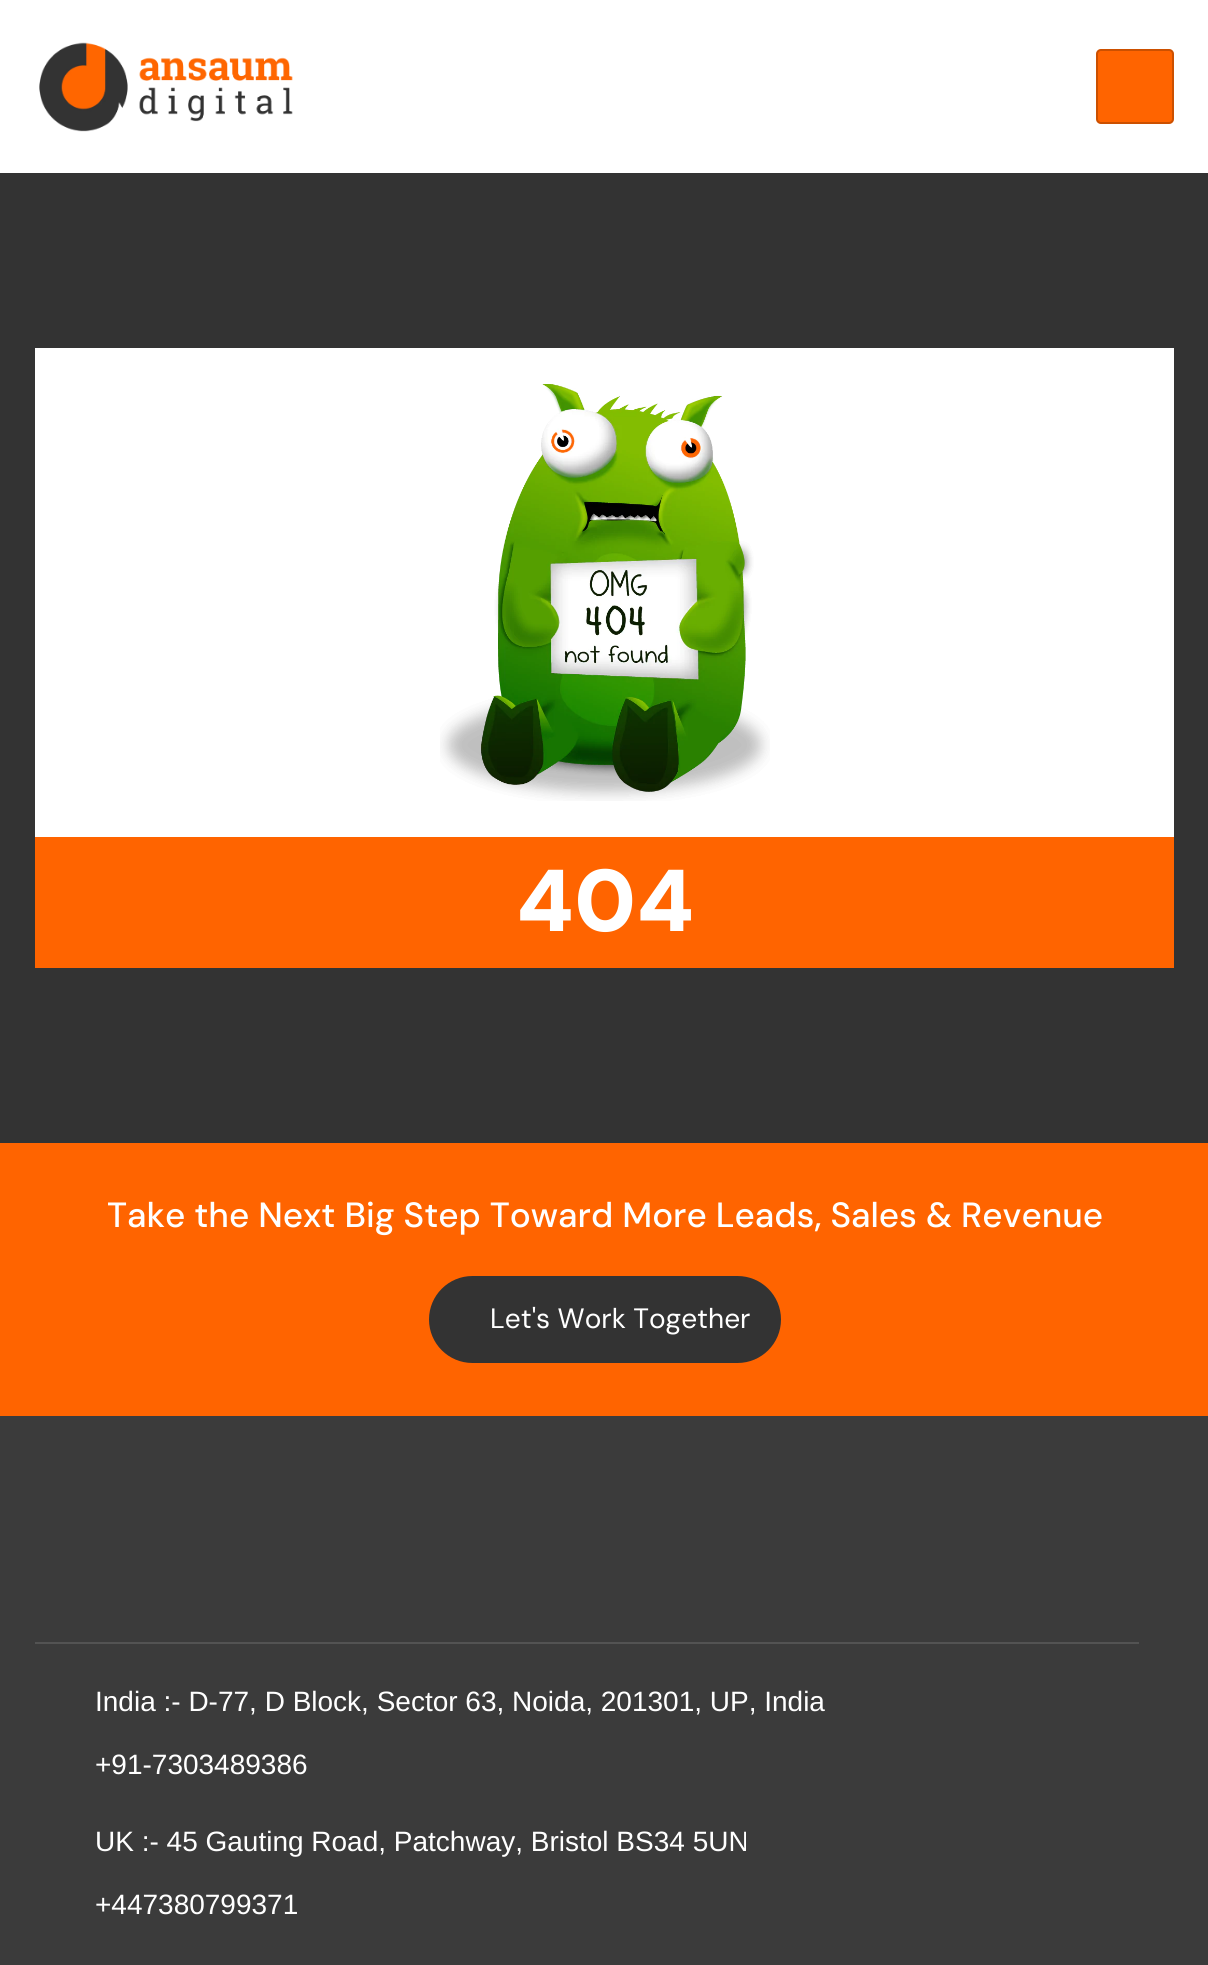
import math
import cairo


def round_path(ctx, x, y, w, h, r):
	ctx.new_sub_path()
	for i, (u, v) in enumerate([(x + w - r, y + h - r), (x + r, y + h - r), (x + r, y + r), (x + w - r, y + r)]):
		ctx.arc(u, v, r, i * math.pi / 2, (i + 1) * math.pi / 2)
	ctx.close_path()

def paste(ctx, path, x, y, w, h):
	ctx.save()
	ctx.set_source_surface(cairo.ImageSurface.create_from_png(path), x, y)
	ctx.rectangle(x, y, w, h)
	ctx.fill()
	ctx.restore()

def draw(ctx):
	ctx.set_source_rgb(1, 1, 1)
	ctx.paint()
	paste(ctx, 'media/1.png', 39, 42, 254, 90)
	ctx.set_source_rgb(1, 0.392, 0)
	round_path(ctx, 1096, 49, 78, 75, 5)
	ctx.fill()
	round_path(ctx, 1097, 50, 76, 73, 4)
	ctx.set_source_rgba(0, 0, 0, 0.2)
	ctx.stroke()
	ctx.set_source_rgb(0.2, 0.2, 0.2)
	ctx.rectangle(0, 173, 1208, 970)
	ctx.fill()
	ctx.set_source_rgb(1, 1, 1)
	ctx.rectangle(35, 348, 1139, 489)
	ctx.fill()
	paste(ctx, 'media/2.png', 440, 384, 330, 417)
	ctx.set_source_rgb(1, 0.392, 0)
	ctx.rectangle(35, 837, 1139, 131)
	ctx.fill()
	ctx.select_font_face('DM Sans Black')
	ctx.set_font_size(87.5)
	ctx.set_source_rgb(1, 1, 1)
	ctx.move_to(516, 931)
	ctx.show_text('404')
	ctx.set_source_rgb(1, 0.392, 0)
	ctx.rectangle(0, 1143, 1208, 273)
	ctx.fill()
	ctx.select_font_face('DM Sans Medium')
	ctx.set_font_size(35)
	ctx.set_source_rgb(1, 1, 1)
	ctx.move_to(107, 1227)
	ctx.show_text('Take the Next Big Step Toward More Leads, Sales & Revenue')
	ctx.set_source_rgb(0.2, 0.2, 0.2)
	round_path(ctx, 429, 1276, 352, 87, 43.5)
	ctx.fill()
	ctx.select_font_face('DM Sans')
	ctx.set_font_size(28)
	ctx.set_source_rgb(1, 1, 1)
	ctx.move_to(490, 1328)
	ctx.show_text('Let\'s Work Together')
	ctx.set_source_rgb(0.231, 0.231, 0.231)
	ctx.rectangle(0, 1416, 1208, 549)
	ctx.fill()
	ctx.set_source_rgb(0.325, 0.325, 0.325)
	ctx.rectangle(35, 1642, 1104, 2)
	ctx.fill()
	ctx.select_font_face('Liberation Sans')
	ctx.set_source_rgb(1, 1, 1)
	for x, y, s in [
		(95, 1711, 'India :- D-77, D Block, Sector 63, Noida, 201301, UP, India'),
		(95, 1774, '+91-7303489386'),
		(95, 1851, 'UK :- 45 Gauting Road, Patchway, Bristol BS34 5UN'),
		(95, 1914, '+447380799371'),
	]:
		ctx.move_to(x, y)
		ctx.show_text(s)


surface = cairo.ImageSurface(cairo.FORMAT_RGB24, 1208, 1965)
ctx = cairo.Context(surface)
options = cairo.FontOptions()
options.set_hint_metrics(cairo.HINT_METRICS_OFF)
options.set_hint_style(cairo.HINT_STYLE_NONE)
ctx.set_font_options(options)
ctx.set_miter_limit(4)
draw(ctx)
surface.write_to_png('image.png')
